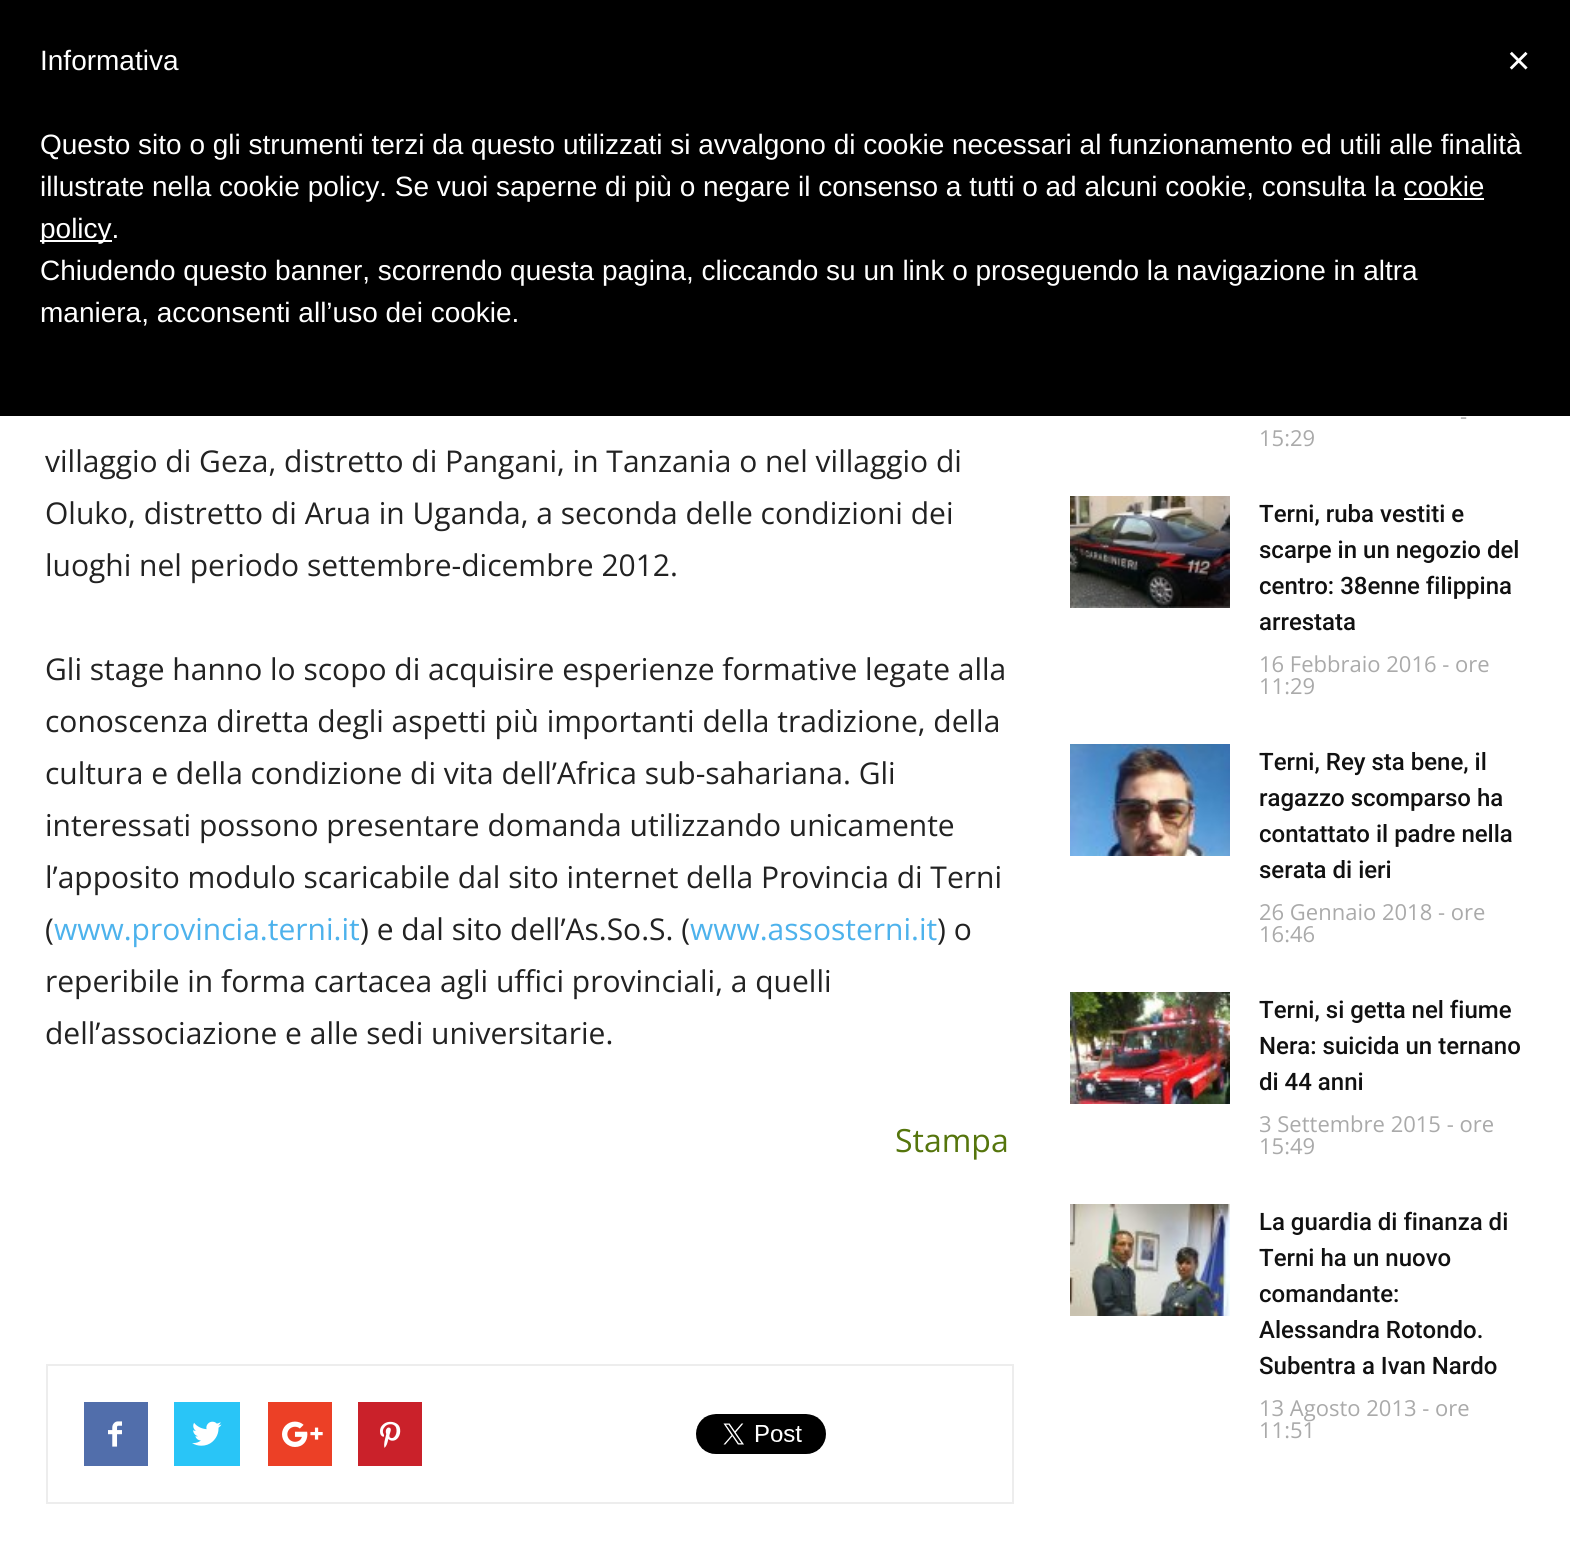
import math
import cairo


def paste(ctx, path, x, y, w, h):
	ctx.save()
	ctx.set_source_surface(cairo.ImageSurface.create_from_png(path), x, y)
	ctx.rectangle(x, y, w, h)
	ctx.fill()
	ctx.restore()

def draw(ctx):
	ctx.set_source_rgb(1, 1, 1)
	ctx.paint()
	ctx.set_source_rgb(0, 0, 0)
	ctx.rectangle(0, 0, 1570, 416)
	ctx.fill()
	ctx.select_font_face('Liberation Sans')
	ctx.set_font_size(28)
	ctx.set_source_rgb(1, 1, 1)
	for x, y, s in [
		(40, 70, 'Informativa'),
		(40, 154, 'Questo sito o gli strumenti terzi da questo utilizzati si avvalgono di cookie necessari al funzionamento ed utili alle finalità'),
		(40, 196, 'illustrate nella cookie policy. Se vuoi saperne di più o negare il consenso a tutti o ad alcuni cookie, consulta la cookie'),
	]:
		ctx.move_to(x, y)
		ctx.show_text(s)
	ctx.rectangle(40, 240, 72, 2)
	ctx.fill()
	ctx.move_to(40, 238)
	ctx.show_text('policy.')
	ctx.rectangle(1404, 198, 80, 2)
	ctx.fill()
	ctx.move_to(40, 280)
	ctx.show_text('Chiudendo questo banner, scorrendo questa pagina, cliccando su un link o proseguendo la navigazione in altra')
	ctx.move_to(40, 322)
	ctx.show_text('maniera, acconsenti all’uso dei cookie.')
	ctx.set_font_size(40)
	ctx.move_to(1507, 74)
	ctx.show_text('×')
	ctx.select_font_face('Open Sans')
	ctx.set_font_size(30)
	ctx.set_source_rgb(0.133, 0.133, 0.133)
	for x, y, s in [
		(45, 472, 'villaggio di Geza, distretto di Pangani, in Tanzania o nel villaggio di'),
		(45, 524, 'Oluko, distretto di Arua in Uganda, a seconda delle condizioni dei'),
		(45, 576, 'luoghi nel periodo settembre-dicembre 2012.'),
		(45, 680, 'Gli stage hanno lo scopo di acquisire esperienze formative legate alla'),
		(45, 732, 'conoscenza diretta degli aspetti più importanti della tradizione, della'),
		(45, 784, 'cultura e della condizione di vita dell’Africa sub-sahariana. Gli'),
		(45, 836, 'interessati possono presentare domanda utilizzando unicamente'),
		(45, 888, 'l’apposito modulo scaricabile dal sito internet della Provincia di Terni'),
		(45, 940, '('),
	]:
		ctx.move_to(x, y)
		ctx.show_text(s)
	ctx.set_source_rgb(0.302, 0.698, 0.925)
	ctx.move_to(54, 940)
	ctx.show_text('www.provincia.terni.it')
	ctx.set_source_rgb(0.133, 0.133, 0.133)
	ctx.move_to(360, 940)
	ctx.show_text(') e dal sito dell’As.So.S. (')
	ctx.set_source_rgb(0.302, 0.698, 0.925)
	ctx.move_to(690, 940)
	ctx.show_text('www.assosterni.it')
	ctx.set_source_rgb(0.133, 0.133, 0.133)
	for x, y, s in [
		(937, 940, ') o'),
		(45, 992, 'reperibile in forma cartacea agli uffici provinciali, a quelli'),
		(45, 1044, 'dell’associazione e alle sedi universitarie.'),
	]:
		ctx.move_to(x, y)
		ctx.show_text(s)
	ctx.set_font_size(32)
	ctx.set_source_rgb(0.333, 0.459, 0.047)
	ctx.move_to(895, 1152)
	ctx.show_text('Stampa')
	ctx.rectangle(47, 1365, 966, 138)
	ctx.set_source_rgb(0.929, 0.929, 0.929)
	ctx.stroke()
	ctx.set_source_rgb(0.318, 0.431, 0.671)
	ctx.rectangle(84, 1402, 64, 64)
	ctx.fill()
	paste(ctx, 'media/1.png', 108, 1421, 14, 26)
	ctx.set_source_rgb(0.161, 0.773, 0.965)
	ctx.rectangle(174, 1402, 66, 64)
	ctx.fill()
	paste(ctx, 'media/2.png', 192, 1421, 30, 25)
	ctx.set_source_rgb(0.922, 0.251, 0.149)
	ctx.rectangle(268, 1402, 64, 64)
	ctx.fill()
	paste(ctx, 'media/3.png', 282, 1421, 41, 26)
	ctx.set_source_rgb(0.792, 0.129, 0.165)
	ctx.rectangle(358, 1402, 64, 64)
	ctx.fill()
	paste(ctx, 'media/4.png', 380, 1421, 21, 27)
	paste(ctx, 'media/5.png', 696, 1414, 130, 40)
	ctx.set_font_size(22)
	ctx.set_source_rgb(0.667, 0.667, 0.667)
	ctx.move_to(1460, 424)
	ctx.show_text('-')
	ctx.move_to(1259, 446)
	ctx.show_text('15:29')
	paste(ctx, 'media/6.png', 1070, 496, 160, 112)
	ctx.select_font_face('Roboto Medium')
	ctx.set_font_size(24)
	ctx.set_source_rgb(0.067, 0.067, 0.067)
	for x, y, s in [
		(1259, 522, 'Terni, ruba vestiti e'),
		(1259, 558, 'scarpe in un negozio del'),
		(1259, 594, 'centro: 38enne filippina'),
		(1259, 630, 'arrestata'),
	]:
		ctx.move_to(x, y)
		ctx.show_text(s)
	ctx.select_font_face('Open Sans')
	ctx.set_font_size(22)
	ctx.set_source_rgb(0.667, 0.667, 0.667)
	ctx.move_to(1259, 672)
	ctx.show_text('16 Febbraio 2016 - ore')
	ctx.move_to(1259, 694)
	ctx.show_text('11:29')
	paste(ctx, 'media/7.png', 1070, 744, 160, 112)
	ctx.select_font_face('Roboto Medium')
	ctx.set_font_size(24)
	ctx.set_source_rgb(0.067, 0.067, 0.067)
	for x, y, s in [
		(1259, 770, 'Terni, Rey sta bene, il'),
		(1259, 806, 'ragazzo scomparso ha'),
		(1259, 842, 'contattato il padre nella'),
		(1259, 878, 'serata di ieri'),
	]:
		ctx.move_to(x, y)
		ctx.show_text(s)
	ctx.select_font_face('Open Sans')
	ctx.set_font_size(22)
	ctx.set_source_rgb(0.667, 0.667, 0.667)
	ctx.move_to(1259, 920)
	ctx.show_text('26 Gennaio 2018 - ore')
	ctx.move_to(1259, 942)
	ctx.show_text('16:46')
	paste(ctx, 'media/8.png', 1070, 992, 160, 112)
	ctx.select_font_face('Roboto Medium')
	ctx.set_font_size(24)
	ctx.set_source_rgb(0.067, 0.067, 0.067)
	for x, y, s in [
		(1259, 1018, 'Terni, si getta nel fiume'),
		(1259, 1054, 'Nera: suicida un ternano'),
		(1259, 1090, 'di 44 anni'),
	]:
		ctx.move_to(x, y)
		ctx.show_text(s)
	ctx.select_font_face('Open Sans')
	ctx.set_font_size(22)
	ctx.set_source_rgb(0.667, 0.667, 0.667)
	ctx.move_to(1259, 1132)
	ctx.show_text('3 Settembre 2015 - ore')
	ctx.move_to(1259, 1154)
	ctx.show_text('15:49')
	paste(ctx, 'media/9.png', 1070, 1204, 160, 112)
	ctx.select_font_face('Roboto Medium')
	ctx.set_font_size(24)
	ctx.set_source_rgb(0.067, 0.067, 0.067)
	for x, y, s in [
		(1259, 1230, 'La guardia di finanza di'),
		(1259, 1266, 'Terni ha un nuovo'),
		(1259, 1302, 'comandante:'),
		(1259, 1338, 'Alessandra Rotondo.'),
		(1259, 1374, 'Subentra a Ivan Nardo'),
	]:
		ctx.move_to(x, y)
		ctx.show_text(s)
	ctx.select_font_face('Open Sans')
	ctx.set_font_size(22)
	ctx.set_source_rgb(0.667, 0.667, 0.667)
	ctx.move_to(1259, 1416)
	ctx.show_text('13 Agosto 2013 - ore')
	ctx.move_to(1259, 1438)
	ctx.show_text('11:51')


surface = cairo.ImageSurface(cairo.FORMAT_RGB24, 1570, 1559)
ctx = cairo.Context(surface)
options = cairo.FontOptions()
options.set_hint_metrics(cairo.HINT_METRICS_OFF)
options.set_hint_style(cairo.HINT_STYLE_NONE)
ctx.set_font_options(options)
ctx.set_miter_limit(4)
draw(ctx)
surface.write_to_png('image.png')
